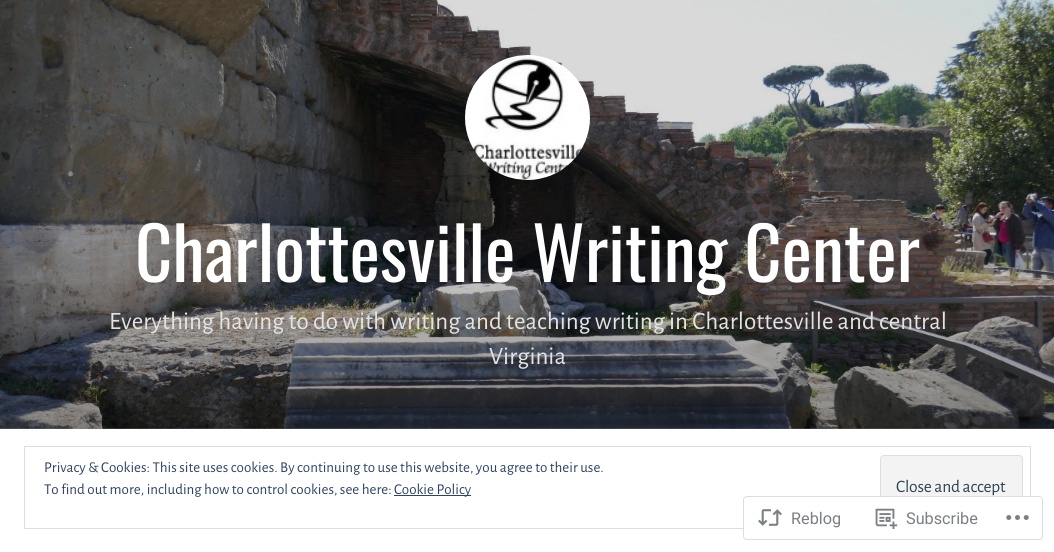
import math
import cairo


def write_spaced(ctx, x, y, s, letter, word):
	ctx.move_to(x, y)
	for ch in s:
		ctx.show_text(ch)
		ctx.rel_move_to(letter + word * (ch == ' '), 0)

def round_path(ctx, x, y, w, h, r):
	ctx.new_sub_path()
	for i, (u, v) in enumerate([(x + w - r, y + h - r), (x + r, y + h - r), (x + r, y + r), (x + w - r, y + r)]):
		ctx.arc(u, v, r, i * math.pi / 2, (i + 1) * math.pi / 2)
	ctx.close_path()

def paste(ctx, path, x, y, w, h):
	ctx.save()
	ctx.set_source_surface(cairo.ImageSurface.create_from_png(path), x, y)
	ctx.rectangle(x, y, w, h)
	ctx.fill()
	ctx.restore()

def draw(ctx):
	ctx.set_source_rgb(1, 1, 1)
	ctx.paint()
	paste(ctx, 'media/1.png', 0, 0, 1054, 429)
	gradient = cairo.LinearGradient(528, 0, 528, 429)
	gradient.add_color_stop_rgba(0.5, 0, 0, 0, 0.15)
	gradient.add_color_stop_rgba(1, 0, 0, 0, 0.45)
	ctx.set_source(gradient)
	ctx.rectangle(0, 0, 1054, 429)
	ctx.fill()
	paste(ctx, 'media/2.png', 465, 55, 125, 125)
	ctx.select_font_face('Oswald')
	ctx.set_font_size(72.5)
	ctx.set_source_rgb(1, 1, 1)
	ctx.move_to(135, 282)
	ctx.show_text('Charlottesville Writing Center')
	ctx.select_font_face('Alegreya Sans')
	ctx.set_font_size(25)
	ctx.set_source_rgb(0.894, 0.89, 0.89)
	ctx.move_to(109, 329)
	ctx.show_text('Everything having to do with writing and teaching writing in Charlottesville and central')
	ctx.move_to(489, 364)
	ctx.show_text('Virginia')
	ctx.rectangle(24.5, 446.5, 1006, 82)
	ctx.set_source_rgb(0.871, 0.871, 0.871)
	ctx.set_line_width(1)
	ctx.stroke()
	ctx.set_font_size(15)
	ctx.set_source_rgb(0.18, 0.267, 0.404)
	ctx.move_to(44, 472)
	ctx.show_text('Privacy & Cookies: This site uses cookies. By continuing to use this website, you agree to their use.')
	ctx.move_to(44, 494)
	ctx.show_text('To find out more, including how to control cookies, see here:')
	ctx.rectangle(394, 495, 77, 1)
	ctx.fill()
	ctx.move_to(394, 494)
	ctx.show_text('Cookie Policy')
	ctx.set_source_rgb(0.953, 0.953, 0.953)
	round_path(ctx, 880.5, 455.5, 142, 64, 3.5)
	ctx.fill_preserve()
	ctx.set_source_rgb(0.871, 0.871, 0.871)
	ctx.stroke()
	ctx.set_font_size(17.5)
	ctx.set_source_rgb(0.18, 0.267, 0.325)
	write_spaced(ctx, 896, 492, 'Close and accept', -0.2, 0)
	ctx.set_source_rgba(1, 1, 1, 0.98)
	round_path(ctx, 743.5, 496.5, 299, 43, 3.5)
	ctx.fill_preserve()
	ctx.set_source_rgb(0.867, 0.867, 0.875)
	ctx.stroke()
	paste(ctx, 'media/3.png', 758, 509, 24, 17)
	ctx.select_font_face('Roboto')
	ctx.set_font_size(16.25)
	ctx.set_source_rgb(0.482, 0.498, 0.522)
	ctx.move_to(791, 524)
	ctx.show_text('Reblog')
	paste(ctx, 'media/4.png', 875, 508, 23, 22)
	ctx.move_to(906, 524)
	ctx.show_text('Subscribe')
	paste(ctx, 'media/5.png', 1006, 515, 23, 5)


surface = cairo.ImageSurface(cairo.FORMAT_RGB24, 1054, 552)
ctx = cairo.Context(surface)
options = cairo.FontOptions()
options.set_hint_metrics(cairo.HINT_METRICS_OFF)
options.set_hint_style(cairo.HINT_STYLE_NONE)
ctx.set_font_options(options)
ctx.set_miter_limit(4)
draw(ctx)
surface.write_to_png('image.png')
